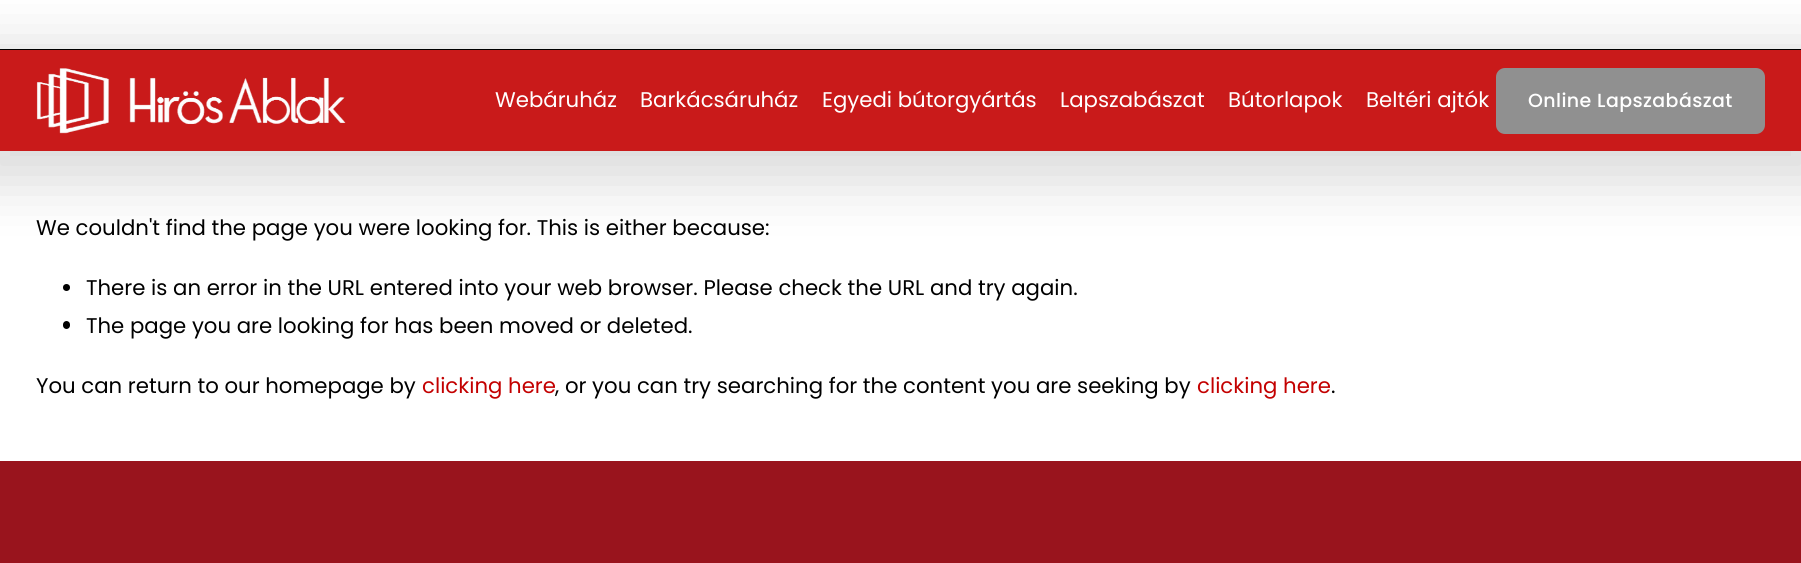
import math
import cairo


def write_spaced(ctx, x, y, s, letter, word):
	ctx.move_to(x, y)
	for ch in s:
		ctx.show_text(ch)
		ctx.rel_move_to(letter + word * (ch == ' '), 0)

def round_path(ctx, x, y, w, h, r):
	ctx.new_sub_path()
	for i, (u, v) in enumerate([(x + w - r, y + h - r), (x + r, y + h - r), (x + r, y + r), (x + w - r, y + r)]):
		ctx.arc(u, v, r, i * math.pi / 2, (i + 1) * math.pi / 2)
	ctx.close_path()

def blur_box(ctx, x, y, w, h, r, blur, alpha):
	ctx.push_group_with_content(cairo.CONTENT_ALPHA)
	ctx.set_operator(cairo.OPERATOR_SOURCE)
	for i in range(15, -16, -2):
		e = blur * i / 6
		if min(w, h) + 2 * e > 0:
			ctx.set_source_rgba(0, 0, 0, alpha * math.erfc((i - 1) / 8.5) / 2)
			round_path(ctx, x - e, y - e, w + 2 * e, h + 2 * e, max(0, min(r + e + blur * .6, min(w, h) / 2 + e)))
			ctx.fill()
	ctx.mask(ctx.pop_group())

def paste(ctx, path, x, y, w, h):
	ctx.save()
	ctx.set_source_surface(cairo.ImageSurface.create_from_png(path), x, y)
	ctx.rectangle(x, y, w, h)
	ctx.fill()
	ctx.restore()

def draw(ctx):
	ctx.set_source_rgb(1, 1, 1)
	ctx.paint()
	ctx.set_source_rgb(0, 0, 0)
	blur_box(ctx, -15, 49, 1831, 132, 0, 30, 0.15)
	ctx.set_source_rgb(0, 0, 0)
	ctx.rectangle(0, 49, 1801, 1)
	ctx.fill()
	ctx.set_source_rgb(0.788, 0.102, 0.102)
	ctx.rectangle(0, 50, 1801, 101)
	ctx.fill()
	paste(ctx, 'media/1.png', 36, 68, 310, 66)
	ctx.select_font_face('Poppins')
	ctx.set_font_size(21.25)
	ctx.set_source_rgb(1, 1, 1)
	for x, y, s in [
		(495, 107, 'Webáruház'),
		(640, 107, 'Barkácsáruház'),
		(822, 107, 'Egyedi bútorgyártás'),
		(1060, 107, 'Lapszabászat'),
		(1228, 107, 'Bútorlapok'),
		(1366, 107, 'Beltéri ajtók'),
	]:
		ctx.move_to(x, y)
		ctx.show_text(s)
	ctx.set_source_rgb(0.565, 0.565, 0.565)
	round_path(ctx, 1496, 68, 269, 66, 9)
	ctx.fill()
	ctx.select_font_face('Poppins Medium')
	ctx.set_font_size(19)
	ctx.set_source_rgb(1, 1, 1)
	write_spaced(ctx, 1528, 107, 'Online Lapszabászat', 0.4, 0)
	ctx.select_font_face('Poppins')
	ctx.set_font_size(21.25)
	ctx.set_source_rgb(0, 0, 0)
	ctx.move_to(36, 235)
	ctx.show_text('We couldn\'t find the page you were looking for. This is either because:')
	ctx.new_path()
	ctx.arc(66.5, 287.5, 3.5, 0, 2 * math.pi)
	ctx.fill()
	ctx.move_to(86, 295)
	ctx.show_text('There is an error in the URL entered into your web browser. Please check the URL and try again.')
	round_path(ctx, 63, 321, 7, 8, 3.5)
	ctx.fill()
	ctx.move_to(86, 333)
	ctx.show_text('The page you are looking for has been moved or deleted.')
	ctx.move_to(36, 393)
	ctx.show_text('You can return to our homepage by')
	ctx.set_source_rgb(0.765, 0, 0)
	ctx.move_to(422, 393)
	ctx.show_text('clicking here')
	ctx.set_source_rgb(0, 0, 0)
	ctx.move_to(555, 393)
	ctx.show_text(', or you can try searching for the content you are seeking by')
	ctx.set_source_rgb(0.765, 0, 0)
	ctx.move_to(1197, 393)
	ctx.show_text('clicking here')
	ctx.set_source_rgb(0, 0, 0)
	ctx.move_to(1331, 393)
	ctx.show_text('.')
	ctx.set_source_rgb(0.6, 0.082, 0.114)
	ctx.rectangle(0, 461, 1801, 102)
	ctx.fill()


surface = cairo.ImageSurface(cairo.FORMAT_RGB24, 1801, 563)
ctx = cairo.Context(surface)
options = cairo.FontOptions()
options.set_hint_metrics(cairo.HINT_METRICS_OFF)
options.set_hint_style(cairo.HINT_STYLE_NONE)
ctx.set_font_options(options)
ctx.set_miter_limit(4)
draw(ctx)
surface.write_to_png('image.png')
